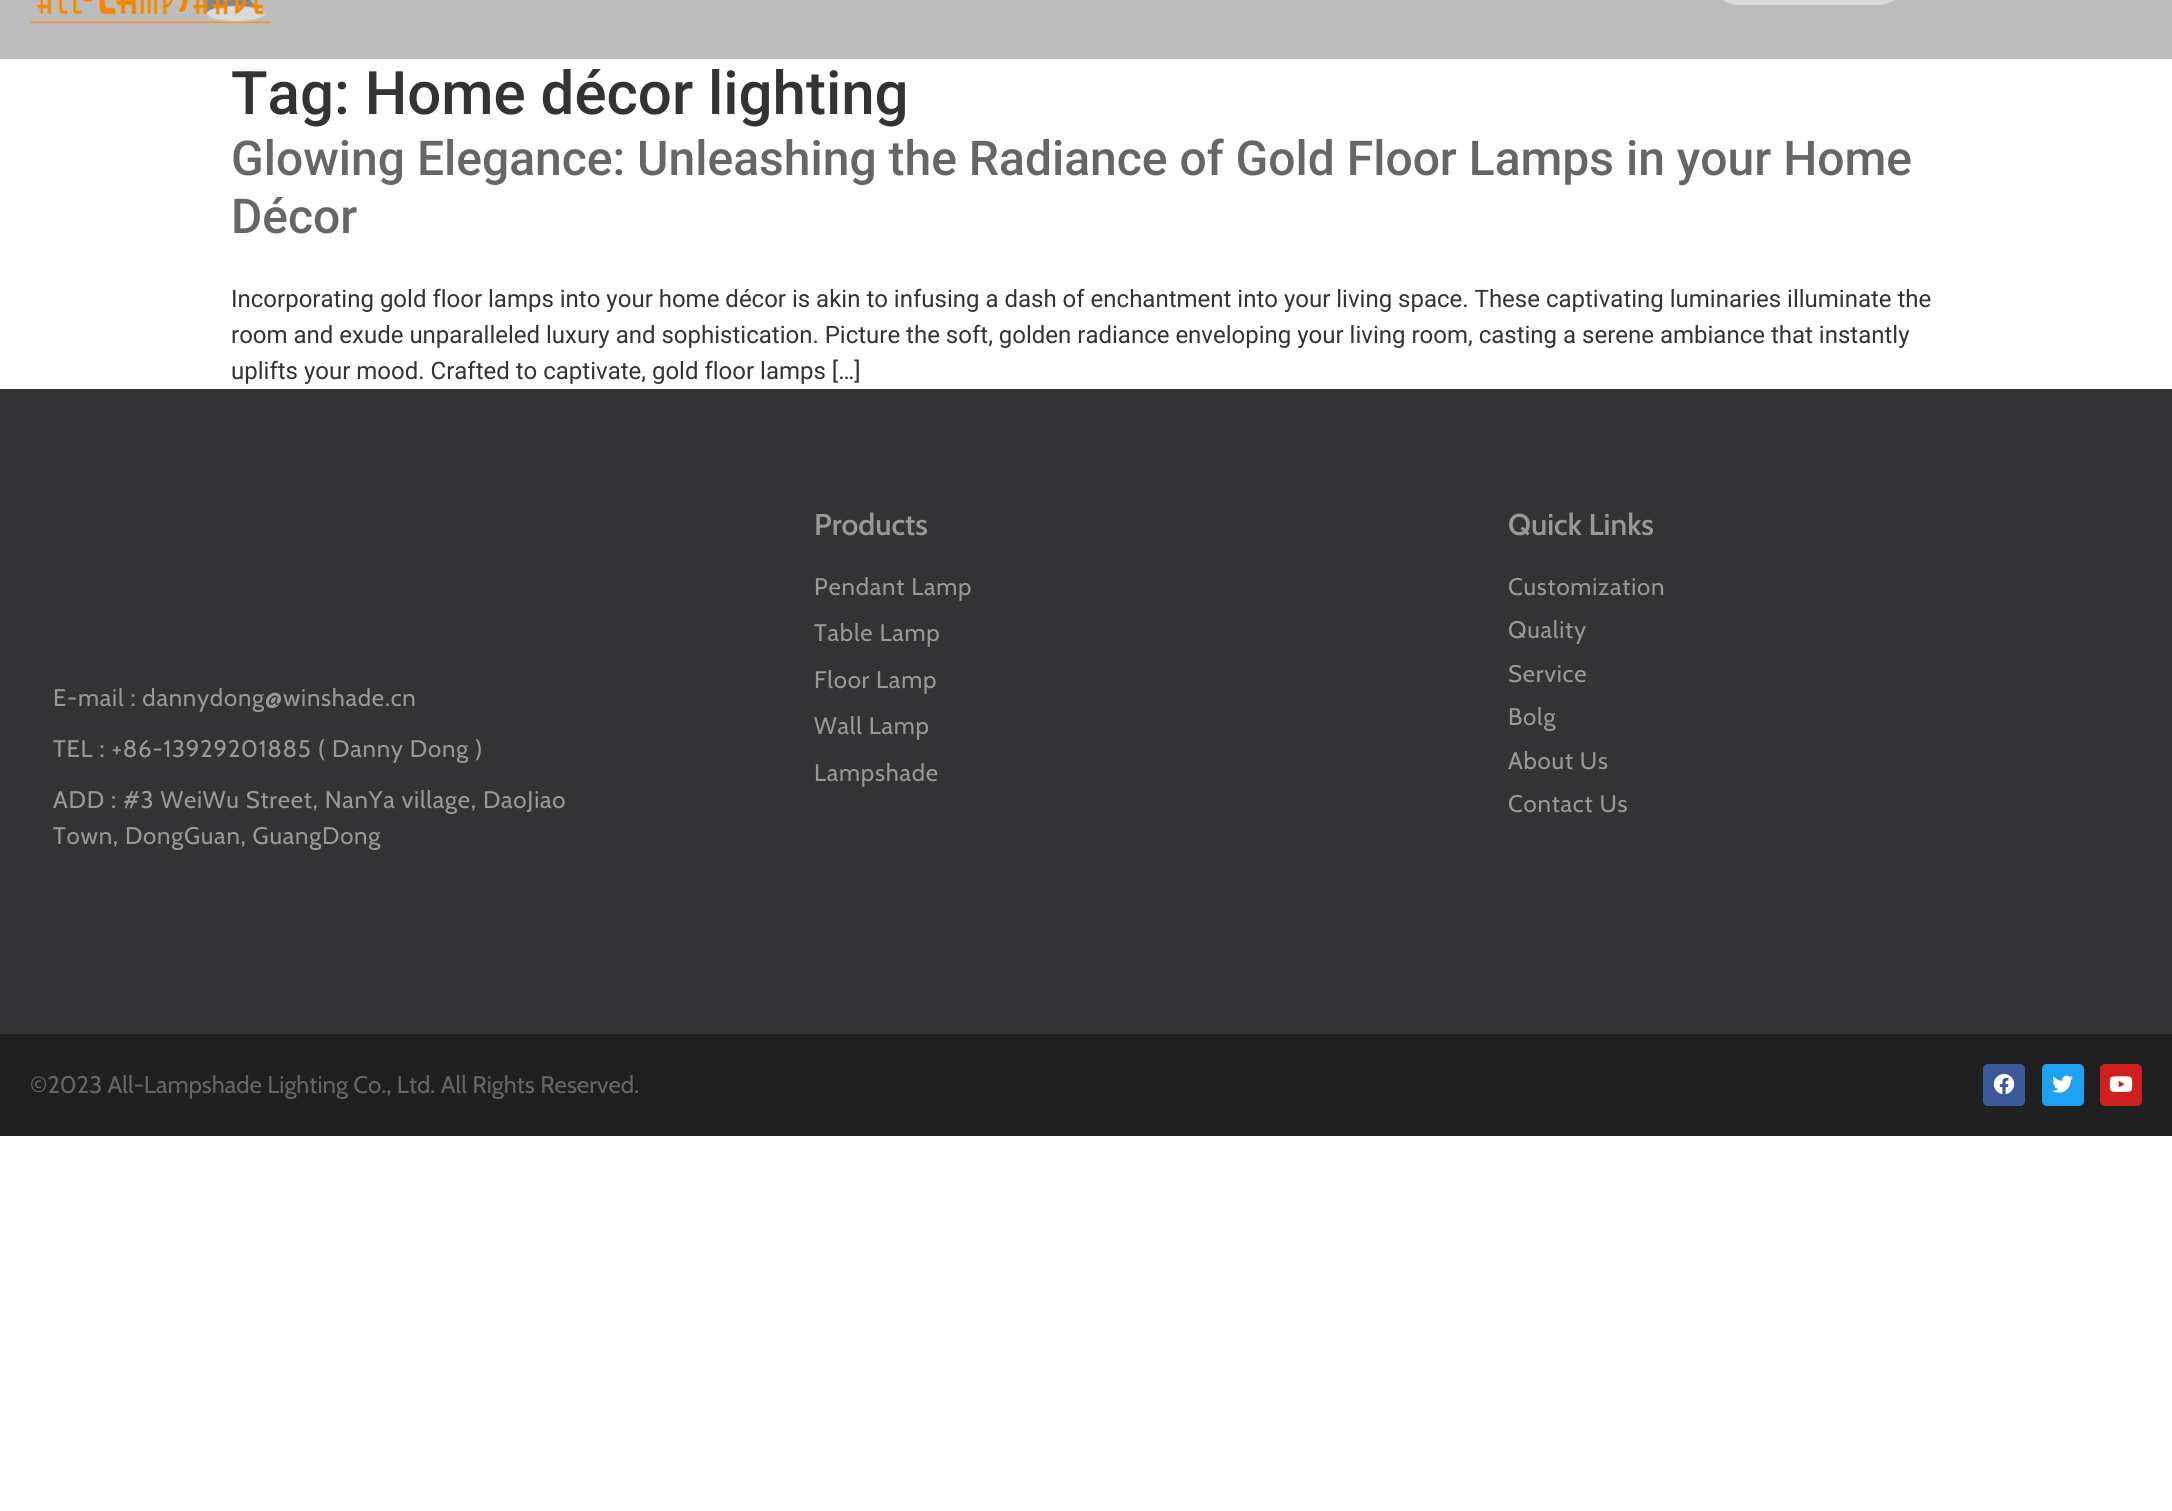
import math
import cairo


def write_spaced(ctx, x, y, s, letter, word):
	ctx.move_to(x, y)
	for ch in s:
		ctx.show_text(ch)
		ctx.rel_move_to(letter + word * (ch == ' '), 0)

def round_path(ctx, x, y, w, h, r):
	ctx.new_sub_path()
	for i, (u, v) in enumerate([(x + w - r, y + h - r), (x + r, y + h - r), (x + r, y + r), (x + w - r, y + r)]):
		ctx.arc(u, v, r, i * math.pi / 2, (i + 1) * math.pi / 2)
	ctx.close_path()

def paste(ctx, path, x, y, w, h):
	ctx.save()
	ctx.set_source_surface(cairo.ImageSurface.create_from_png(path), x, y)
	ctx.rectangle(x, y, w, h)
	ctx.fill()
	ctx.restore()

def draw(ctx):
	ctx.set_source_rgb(1, 1, 1)
	ctx.paint()
	ctx.set_source_rgb(0.737, 0.737, 0.737)
	ctx.rectangle(0, 0, 2172, 59)
	ctx.fill()
	ctx.set_source_rgb(0.851, 0.855, 0.863)
	round_path(ctx, 1709, -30, 199, 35, 30)
	ctx.fill()
	paste(ctx, 'media/1.png', 30, 0, 241, 24)
	ctx.select_font_face('Roboto Medium')
	ctx.set_font_size(60)
	ctx.set_source_rgb(0.2, 0.2, 0.2)
	ctx.move_to(231, 114)
	ctx.show_text('Tag: Home décor lighting')
	ctx.set_font_size(48)
	ctx.set_source_rgb(0.4, 0.4, 0.4)
	ctx.move_to(231, 175)
	ctx.show_text('Glowing Elegance: Unleashing the Radiance of Gold Floor Lamps in your Home')
	ctx.move_to(231, 233)
	ctx.show_text('Décor')
	ctx.select_font_face('Roboto')
	ctx.set_font_size(24)
	ctx.set_source_rgb(0.2, 0.2, 0.2)
	for x, y, s in [
		(231, 307, 'Incorporating gold floor lamps into your home décor is akin to infusing a dash of enchantment into your living space. These captivating luminaries illuminate the'),
		(231, 343, 'room and exude unparalleled luxury and sophistication. Picture the soft, golden radiance enveloping your living room, casting a serene ambiance that instantly'),
		(231, 379, 'uplifts your mood. Crafted to captivate, gold floor lamps […]'),
	]:
		ctx.move_to(x, y)
		ctx.show_text(s)
	ctx.set_source_rgb(0.2, 0.2, 0.208)
	ctx.rectangle(0, 389, 2172, 645)
	ctx.fill()
	ctx.select_font_face('Cabin')
	ctx.set_source_rgb(0.6, 0.6, 0.6)
	for x, y, s in [
		(53, 706, 'E-mail : dannydong@winshade.cn'),
		(53, 757, 'TEL : +86-13929201885 ( Danny Dong )'),
		(53, 808, 'ADD : #3 WeiWu Street, NanYa village, DaoJiao'),
		(53, 844, 'Town, DongGuan, GuangDong'),
	]:
		write_spaced(ctx, x, y, s, 0.75, 0)
	ctx.select_font_face('Cabin SemiBold')
	ctx.set_font_size(30)
	ctx.move_to(814, 535)
	ctx.show_text('Products')
	ctx.select_font_face('Cabin')
	ctx.set_font_size(24)
	for x, y, s in [
		(814, 595, 'Pendant Lamp'),
		(814, 641, 'Table Lamp'),
		(814, 688, 'Floor Lamp'),
		(814, 734, 'Wall Lamp'),
		(814, 781, 'Lampshade'),
	]:
		write_spaced(ctx, x, y, s, 0.75, 0)
	ctx.select_font_face('Cabin SemiBold')
	ctx.set_font_size(30)
	ctx.move_to(1508, 535)
	ctx.show_text('Quick Links')
	ctx.select_font_face('Cabin')
	ctx.set_font_size(24)
	for x, y, s in [
		(1508, 595, 'Customization'),
		(1508, 638, 'Quality'),
		(1508, 682, 'Service'),
		(1508, 725, 'Bolg'),
		(1508, 769, 'About Us'),
		(1508, 812, 'Contact Us'),
	]:
		write_spaced(ctx, x, y, s, 0.75, 0)
	ctx.set_source_rgb(0.122, 0.122, 0.122)
	ctx.rectangle(0, 1034, 2172, 102)
	ctx.fill()
	ctx.set_source_rgb(0.4, 0.4, 0.4)
	ctx.move_to(30, 1093)
	ctx.show_text('©2023 All-Lampshade Lighting Co., Ltd. All Rights Reserved.')
	ctx.set_source_rgb(0.231, 0.349, 0.596)
	round_path(ctx, 1983, 1064, 42, 42, 5)
	ctx.fill()
	paste(ctx, 'media/2.png', 1993, 1074, 22, 21)
	ctx.set_source_rgb(0.114, 0.631, 0.949)
	round_path(ctx, 2042, 1064, 42, 42, 5)
	ctx.fill()
	paste(ctx, 'media/3.png', 2052, 1075, 21, 18)
	ctx.set_source_rgb(0.804, 0.125, 0.122)
	round_path(ctx, 2100, 1064, 42, 42, 5)
	ctx.fill()
	paste(ctx, 'media/4.png', 2109, 1076, 24, 16)


surface = cairo.ImageSurface(cairo.FORMAT_RGB24, 2172, 1511)
ctx = cairo.Context(surface)
options = cairo.FontOptions()
options.set_hint_metrics(cairo.HINT_METRICS_OFF)
options.set_hint_style(cairo.HINT_STYLE_NONE)
ctx.set_font_options(options)
ctx.set_miter_limit(4)
draw(ctx)
surface.write_to_png('image.png')
